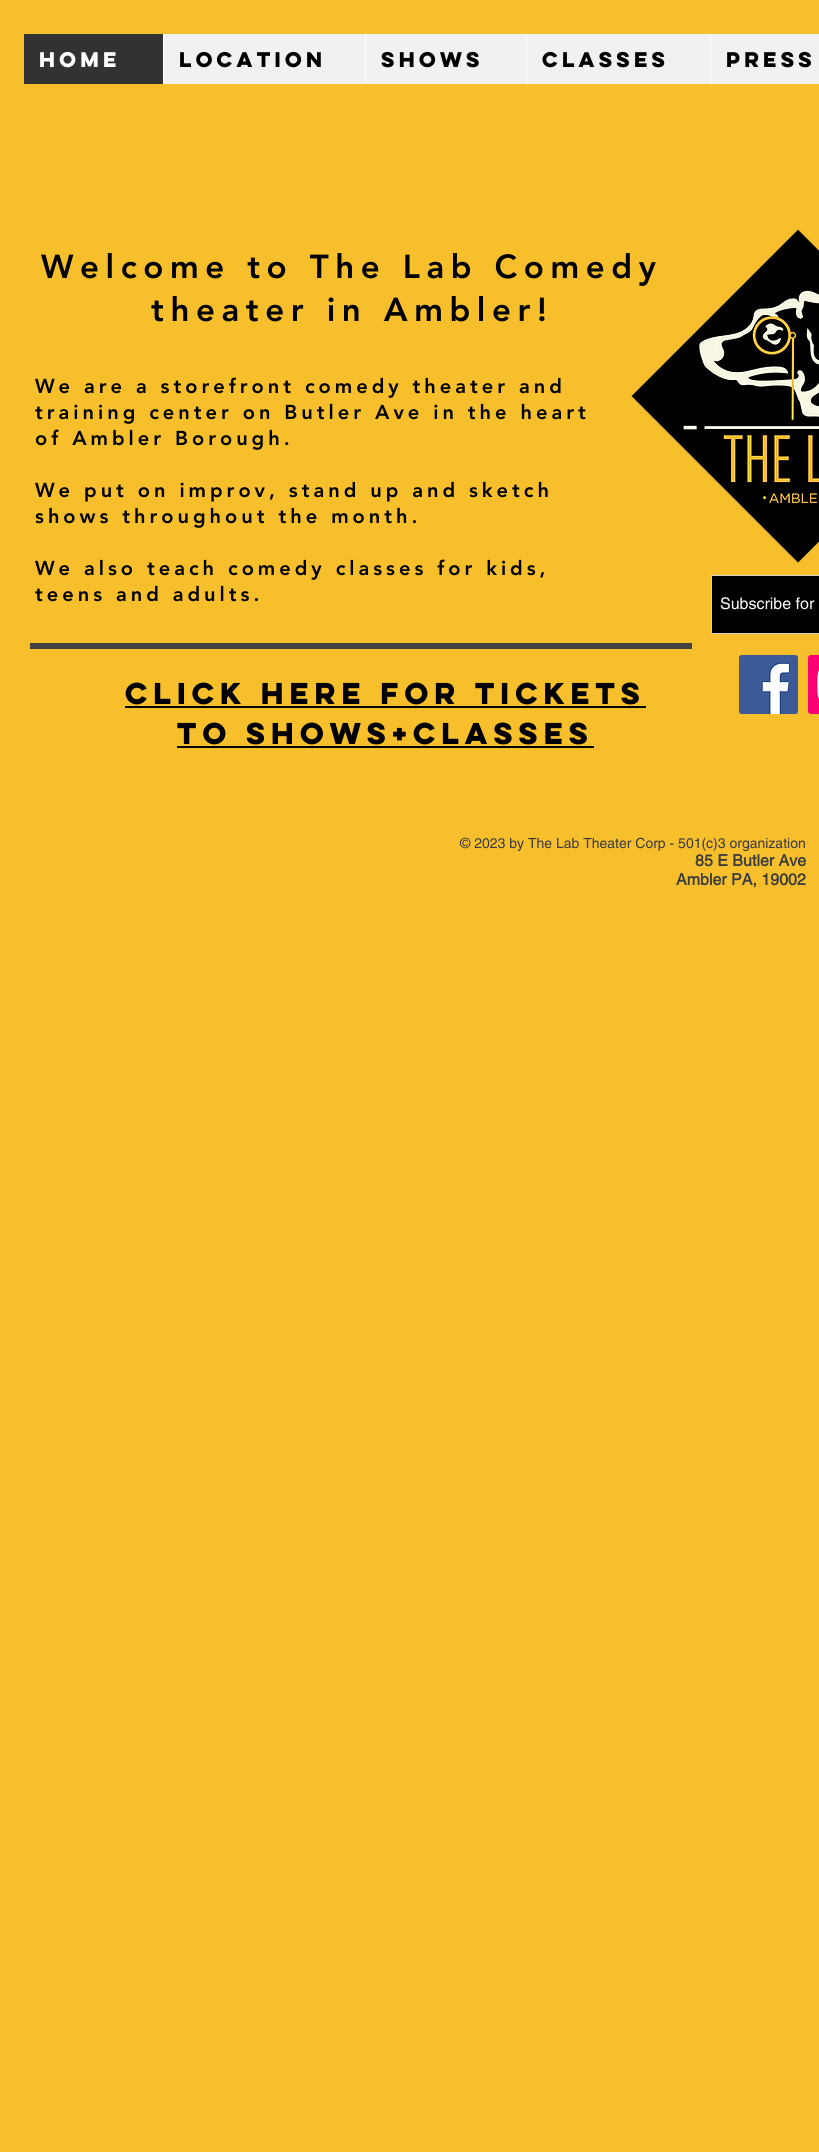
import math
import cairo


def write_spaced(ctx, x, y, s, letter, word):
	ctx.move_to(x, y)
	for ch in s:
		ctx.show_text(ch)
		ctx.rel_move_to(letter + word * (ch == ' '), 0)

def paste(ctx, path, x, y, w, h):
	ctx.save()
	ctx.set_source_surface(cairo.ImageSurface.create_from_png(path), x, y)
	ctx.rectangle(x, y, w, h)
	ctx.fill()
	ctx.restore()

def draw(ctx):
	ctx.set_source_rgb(0.969, 0.749, 0.173)
	ctx.paint()
	ctx.set_source_rgb(0.945, 0.945, 0.945)
	ctx.rectangle(164, 34, 655, 50)
	ctx.fill()
	ctx.set_source_rgb(0.196, 0.196, 0.196)
	ctx.rectangle(24, 34, 139, 50)
	ctx.fill()
	ctx.select_font_face('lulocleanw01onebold', cairo.FONT_SLANT_NORMAL, cairo.FONT_WEIGHT_BOLD)
	ctx.set_font_size(19)
	ctx.set_source_rgb(1, 1, 1)
	ctx.move_to(39, 67)
	ctx.show_text('Home')
	ctx.rectangle(163, 34, 1, 50)
	ctx.fill()
	ctx.set_source_rgb(0, 0, 0)
	ctx.move_to(179, 67)
	ctx.show_text('Location')
	ctx.set_source_rgb(1, 1, 1)
	ctx.rectangle(365, 34, 1, 50)
	ctx.fill()
	ctx.set_source_rgb(0, 0, 0)
	ctx.move_to(381, 67)
	ctx.show_text('Shows')
	ctx.set_source_rgb(1, 1, 1)
	ctx.rectangle(526, 34, 1, 50)
	ctx.fill()
	ctx.set_source_rgb(0, 0, 0)
	ctx.move_to(542, 67)
	ctx.show_text('Classes')
	ctx.set_source_rgb(1, 1, 1)
	ctx.rectangle(710, 34, 1, 50)
	ctx.fill()
	ctx.set_source_rgb(0, 0, 0)
	ctx.move_to(726, 67)
	ctx.show_text('Press')
	ctx.select_font_face('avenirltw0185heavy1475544 Black')
	ctx.set_font_size(33)
	write_spaced(ctx, 41, 278, 'Welcome to The Lab Comedy', 6.6, 0)
	write_spaced(ctx, 151, 321, 'theater in Ambler!', 6.6, 0)
	paste(ctx, 'media/1.png', 631, 229, 188, 334)
	ctx.set_font_size(20)
	for x, y, s in [
		(35, 393, 'We are a storefront comedy theater and'),
		(35, 419, 'training center on Butler Ave in the heart'),
		(35, 445, 'of Ambler Borough.'),
		(35, 497, 'We put on improv, stand up and sketch'),
		(35, 523, 'shows throughout the month.'),
		(35, 575, 'We also teach comedy classes for kids,'),
		(35, 601, 'teens and adults.'),
	]:
		write_spaced(ctx, x, y, s, 4, 0)
	ctx.rectangle(711.5, 575.5, 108, 58)
	ctx.fill_preserve()
	ctx.set_source_rgb(0.82, 0.82, 0.82)
	ctx.set_line_width(1)
	ctx.stroke()
	ctx.select_font_face('helvetica')
	ctx.set_font_size(16)
	ctx.set_source_rgb(1, 1, 1)
	ctx.move_to(720, 609)
	ctx.show_text('Subscribe for')
	ctx.set_source_rgb(0.259, 0.259, 0.259)
	ctx.rectangle(30, 643, 662, 6)
	ctx.fill()
	ctx.select_font_face('lulocleanw01onebold', cairo.FONT_SLANT_NORMAL, cairo.FONT_WEIGHT_BOLD)
	ctx.set_font_size(27)
	ctx.set_source_rgb(0, 0, 0)
	ctx.move_to(125, 704)
	ctx.show_text('click here for tickets')
	ctx.rectangle(125, 706, 521, 2)
	ctx.fill()
	ctx.move_to(177, 744)
	ctx.show_text('to shows+classes')
	ctx.rectangle(177, 746, 417, 2)
	ctx.fill()
	paste(ctx, 'media/2.png', 739, 655, 59, 59)
	paste(ctx, 'media/3.png', 808, 655, 11, 59)
	ctx.select_font_face('helvetica')
	ctx.set_font_size(14)
	ctx.set_source_rgb(0.231, 0.231, 0.231)
	ctx.move_to(460, 848)
	ctx.show_text('© 2023 by The Lab Theater Corp - 501(c)3 organization')
	ctx.select_font_face('helvetica', cairo.FONT_SLANT_NORMAL, cairo.FONT_WEIGHT_BOLD)
	ctx.set_font_size(16)
	ctx.move_to(695, 866)
	ctx.show_text('85 E Butler Ave')
	ctx.move_to(676, 885)
	ctx.show_text('Ambler PA, 19002')


surface = cairo.ImageSurface(cairo.FORMAT_RGB24, 819, 2152)
ctx = cairo.Context(surface)
options = cairo.FontOptions()
options.set_hint_metrics(cairo.HINT_METRICS_OFF)
options.set_hint_style(cairo.HINT_STYLE_NONE)
ctx.set_font_options(options)
ctx.set_miter_limit(4)
draw(ctx)
surface.write_to_png('image.png')
